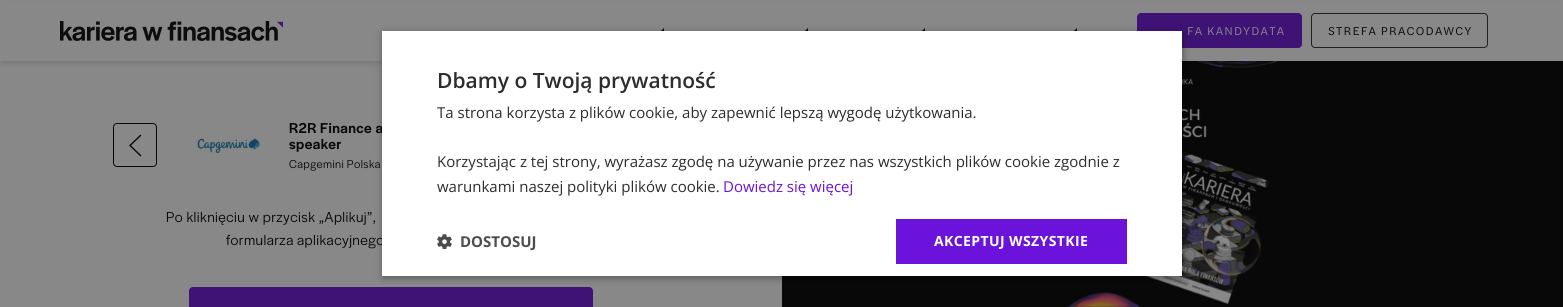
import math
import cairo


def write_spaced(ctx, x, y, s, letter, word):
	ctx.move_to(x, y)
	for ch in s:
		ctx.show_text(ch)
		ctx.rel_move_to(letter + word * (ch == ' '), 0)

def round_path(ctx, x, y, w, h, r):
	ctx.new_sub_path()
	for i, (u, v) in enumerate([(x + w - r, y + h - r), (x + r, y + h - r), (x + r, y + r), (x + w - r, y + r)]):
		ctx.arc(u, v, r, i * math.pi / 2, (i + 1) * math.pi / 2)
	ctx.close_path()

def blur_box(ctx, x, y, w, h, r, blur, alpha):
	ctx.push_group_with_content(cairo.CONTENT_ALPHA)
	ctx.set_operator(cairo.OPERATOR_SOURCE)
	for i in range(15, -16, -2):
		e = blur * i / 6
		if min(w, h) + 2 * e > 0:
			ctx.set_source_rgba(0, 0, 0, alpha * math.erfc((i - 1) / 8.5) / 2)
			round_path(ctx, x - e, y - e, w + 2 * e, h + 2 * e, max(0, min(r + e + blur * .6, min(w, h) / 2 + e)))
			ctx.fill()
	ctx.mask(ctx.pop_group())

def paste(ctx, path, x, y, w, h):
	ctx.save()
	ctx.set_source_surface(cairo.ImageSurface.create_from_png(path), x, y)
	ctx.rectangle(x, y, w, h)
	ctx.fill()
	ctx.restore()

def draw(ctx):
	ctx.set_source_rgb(0.533, 0.533, 0.533)
	ctx.paint()
	ctx.set_source_rgb(0.035, 0.035, 0.035)
	ctx.rectangle(782, 61, 781, 246)
	ctx.fill()
	paste(ctx, 'media/3.png', 1067, 61, 211, 246)
	ctx.set_source_rgb(0.035, 0.035, 0.035)
	blur_box(ctx, 2, 4, 1559, 57, 0, 2, 0.1)
	blur_box(ctx, 1, 5, 1561, 59, 0, 3, 0.1)
	ctx.set_source_rgb(0.533, 0.533, 0.533)
	ctx.rectangle(0, 1, 1563, 60)
	ctx.fill()
	paste(ctx, 'media/1.png', 60, 21, 223, 20)
	ctx.set_source_rgb(0.035, 0.035, 0.035)
	ctx.new_path()
	ctx.move_to(664, 34)
	ctx.line_to(658, 34)
	ctx.line_to(664, 28)
	ctx.close_path()
	ctx.fill()
	ctx.new_path()
	ctx.move_to(808, 34)
	ctx.line_to(802, 34)
	ctx.line_to(808, 28)
	ctx.close_path()
	ctx.fill()
	ctx.new_path()
	ctx.move_to(925, 34)
	ctx.line_to(919, 34)
	ctx.line_to(925, 28)
	ctx.close_path()
	ctx.fill()
	ctx.new_path()
	ctx.move_to(1077, 34)
	ctx.line_to(1071, 34)
	ctx.line_to(1077, 28)
	ctx.close_path()
	ctx.fill()
	ctx.set_source_rgb(0.247, 0.075, 0.463)
	round_path(ctx, 1137.5, 13.5, 164, 34, 3.5)
	ctx.fill_preserve()
	ctx.set_line_width(1)
	ctx.stroke()
	ctx.select_font_face('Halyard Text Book')
	ctx.set_font_size(12)
	ctx.set_source_rgb(0.533, 0.533, 0.533)
	write_spaced(ctx, 1187, 35, 'FA KANDYDATA', 1.25, 0)
	round_path(ctx, 1311.5, 13.5, 176, 34, 3.5)
	ctx.set_source_rgb(0.125, 0.125, 0.125)
	ctx.stroke()
	ctx.set_source_rgb(0.035, 0.035, 0.035)
	write_spaced(ctx, 1328, 35, 'STREFA PRACODAWCY', 1.25, 0)
	round_path(ctx, 113.5, 123.5, 43, 43, 3.5)
	ctx.stroke()
	ctx.new_path()
	ctx.move_to(141, 156)
	ctx.line_to(130, 145.5)
	ctx.line_to(141, 135)
	ctx.set_line_width(1.4)
	ctx.stroke()
	paste(ctx, 'media/2.png', 197, 137, 64, 16)
	ctx.select_font_face('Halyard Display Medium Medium')
	ctx.set_font_size(15)
	write_spaced(ctx, 289, 133, 'R2R Finance a', 0.4, 0)
	write_spaced(ctx, 289, 149, 'speaker', 0.4, 0)
	ctx.select_font_face('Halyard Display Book')
	ctx.set_font_size(12)
	write_spaced(ctx, 289, 168, 'Capgemini Polska', 0.4, 0)
	ctx.set_font_size(15)
	write_spaced(ctx, 166, 222, 'Po kliknięciu w przycisk „Aplikuj”,', 0.4, 0)
	write_spaced(ctx, 226, 245, 'formularza aplikacyjnego', 0.4, 0)
	ctx.set_source_rgb(0.247, 0.075, 0.463)
	round_path(ctx, 189.5, 287.5, 403, 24, 3.5)
	ctx.fill_preserve()
	ctx.set_line_width(1)
	ctx.stroke()
	ctx.set_source_rgb(0, 0, 0)
	blur_box(ctx, 383, 33, 800, 245, 0, 4, 0.35)
	ctx.set_source_rgb(1, 1, 1)
	ctx.rectangle(382, 31, 800, 245)
	ctx.fill()
	ctx.select_font_face('Open Sans SemiBold')
	ctx.set_font_size(21)
	ctx.set_source_rgb(0.176, 0.176, 0.176)
	ctx.move_to(437, 88)
	ctx.show_text('Dbamy o Twoją prywatność')
	ctx.select_font_face('Open Sans')
	ctx.set_font_size(15)
	for x, y, s in [
		(437, 118, 'Ta strona korzysta z plików cookie, aby zapewnić lepszą wygodę użytkowania.'),
		(437, 167, 'Korzystając z tej strony, wyrażasz zgodę na używanie przez nas wszystkich plików cookie zgodnie z'),
		(437, 192, 'warunkami naszej polityki plików cookie.'),
	]:
		ctx.move_to(x, y)
		ctx.show_text(s)
	ctx.set_source_rgb(0.424, 0.078, 0.859)
	ctx.move_to(723, 192)
	ctx.show_text('Dowiedz się więcej')
	paste(ctx, 'media/4.png', 437, 234, 15, 15)
	ctx.select_font_face('Open Sans', cairo.FONT_SLANT_NORMAL, cairo.FONT_WEIGHT_BOLD)
	ctx.set_source_rgb(0.302, 0.302, 0.302)
	ctx.move_to(460, 247)
	ctx.show_text('DOSTOSUJ')
	ctx.set_source_rgb(0.424, 0.078, 0.859)
	ctx.rectangle(896, 219, 231, 45)
	ctx.fill()
	ctx.set_font_size(14)
	ctx.set_source_rgb(1, 1, 1)
	write_spaced(ctx, 934, 246, 'AKCEPTUJ WSZYSTKIE', 0.4, 0)


surface = cairo.ImageSurface(cairo.FORMAT_RGB24, 1563, 307)
ctx = cairo.Context(surface)
options = cairo.FontOptions()
options.set_hint_metrics(cairo.HINT_METRICS_OFF)
options.set_hint_style(cairo.HINT_STYLE_NONE)
ctx.set_font_options(options)
ctx.set_miter_limit(4)
draw(ctx)
surface.write_to_png('image.png')
